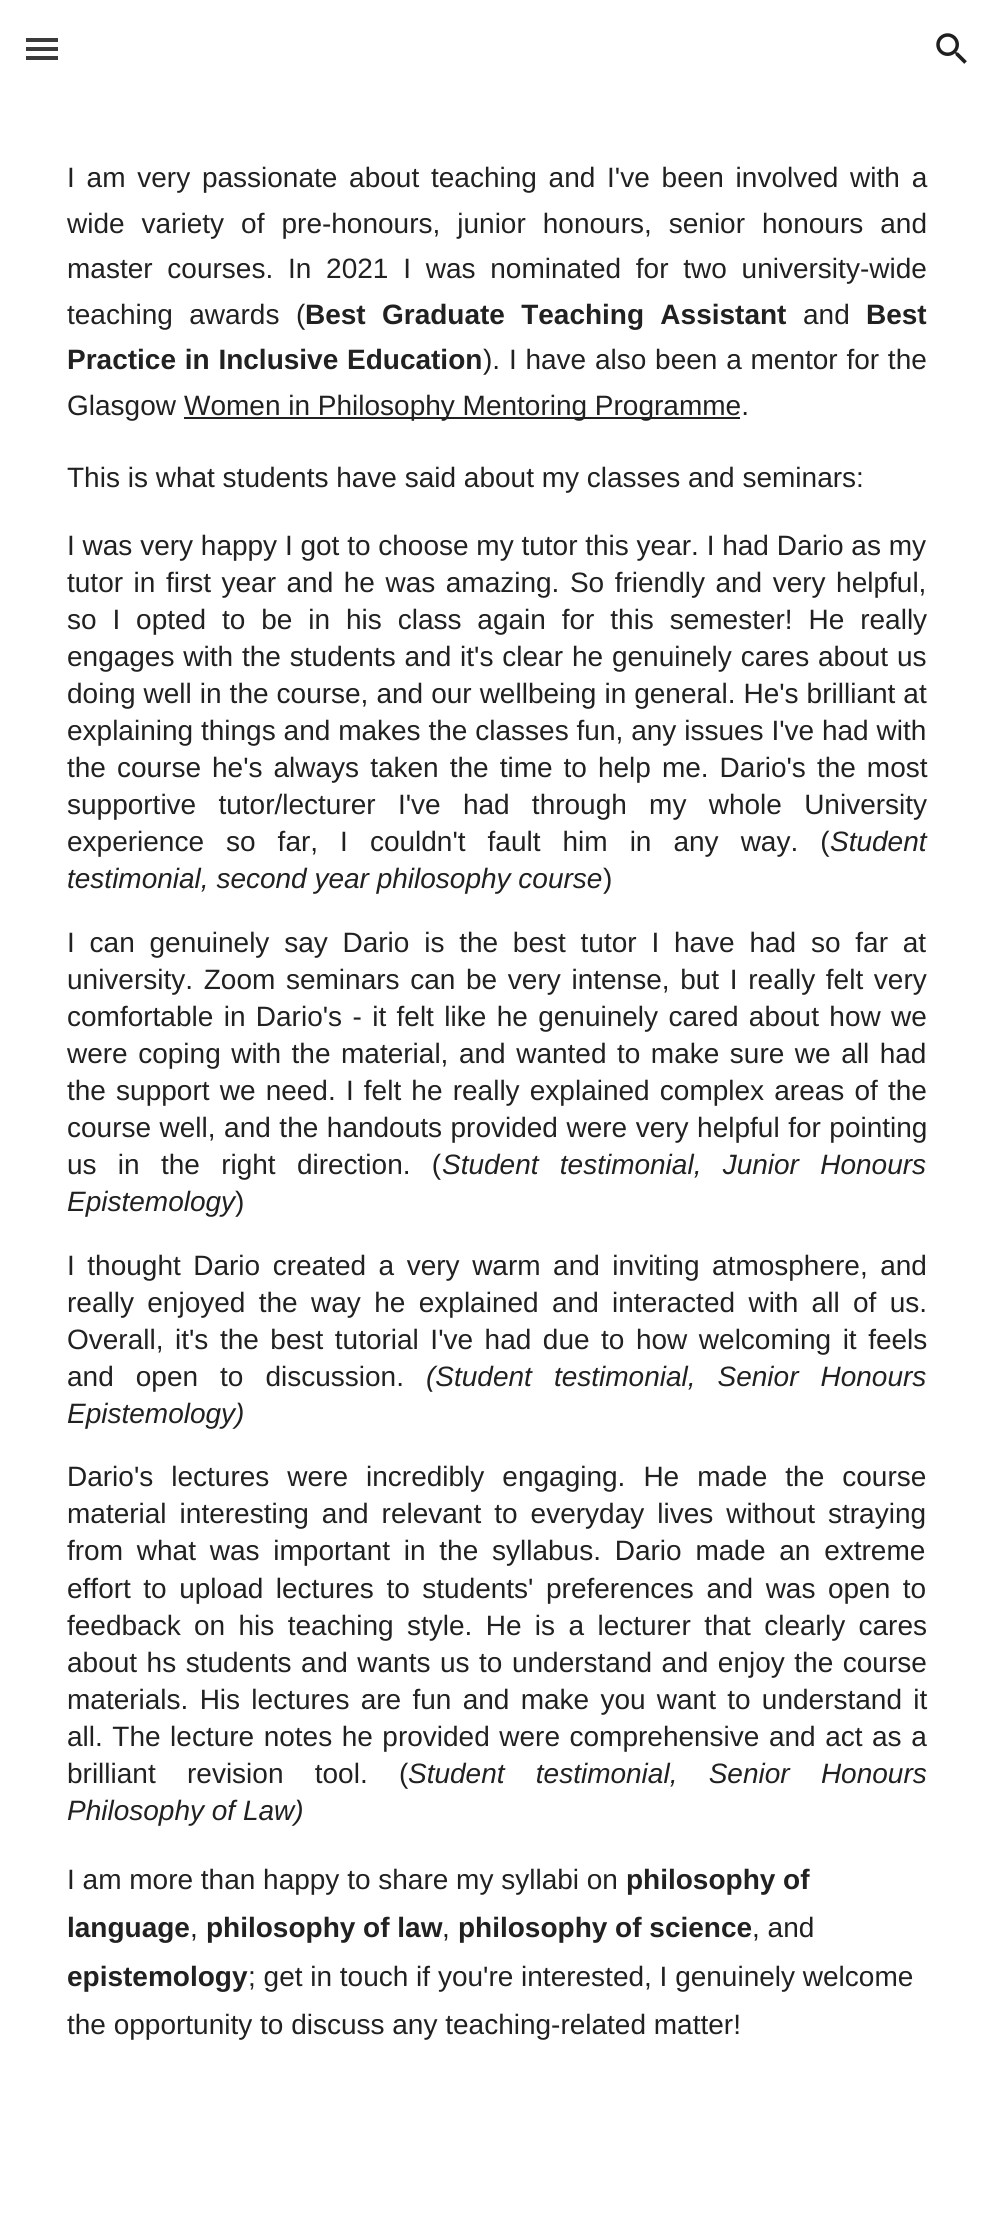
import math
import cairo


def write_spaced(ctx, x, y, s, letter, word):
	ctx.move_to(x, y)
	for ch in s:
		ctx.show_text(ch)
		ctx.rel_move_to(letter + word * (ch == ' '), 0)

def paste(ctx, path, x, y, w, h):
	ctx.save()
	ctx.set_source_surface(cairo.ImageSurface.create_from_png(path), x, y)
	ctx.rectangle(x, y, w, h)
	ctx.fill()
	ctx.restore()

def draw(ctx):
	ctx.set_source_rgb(1, 1, 1)
	ctx.paint()
	ctx.set_source_rgb(0.231, 0.231, 0.231)
	ctx.rectangle(26, 38, 32, 4)
	ctx.rectangle(26, 47, 32, 4)
	ctx.rectangle(26, 56, 32, 4)
	ctx.fill()
	paste(ctx, 'media/1.png', 936, 33, 31, 31)
	ctx.select_font_face('Liberation Sans')
	ctx.set_font_size(28)
	ctx.set_source_rgb(0.129, 0.129, 0.129)
	write_spaced(ctx, 67, 187, 'I am very passionate about teaching and I\'ve been involved with a', 0, 4)
	write_spaced(ctx, 67, 233, 'wide variety of pre-honours, junior honours, senior honours and', 0, 9.25)
	write_spaced(ctx, 67, 278, 'master courses. In 2021 I was nominated for two university-wide', 0, 7)
	write_spaced(ctx, 67, 324, 'teaching awards', 0, 8.5)
	ctx.move_to(296, 324)
	ctx.show_text('(')
	ctx.select_font_face('Liberation Sans', cairo.FONT_SLANT_NORMAL, cairo.FONT_WEIGHT_BOLD)
	write_spaced(ctx, 305, 324, 'Best Graduate Teaching Assistant', 0, 8.5)
	ctx.select_font_face('Liberation Sans')
	ctx.move_to(803, 324)
	ctx.show_text('and')
	ctx.select_font_face('Liberation Sans', cairo.FONT_SLANT_NORMAL, cairo.FONT_WEIGHT_BOLD)
	ctx.move_to(866, 324)
	ctx.show_text('Best')
	write_spaced(ctx, 67, 369, 'Practice in Inclusive Education', 0, 1)
	ctx.select_font_face('Liberation Sans')
	write_spaced(ctx, 483, 369, '). I have also been a mentor for the', 0, 1)
	ctx.move_to(67, 415)
	ctx.show_text('Glasgow')
	ctx.rectangle(184, 417, 556, 2)
	ctx.fill()
	for x, y, s in [
		(184, 415, 'Women in Philosophy Mentoring Programme.'),
		(67, 487, 'This is what students have said about my classes and seminars:'),
		(67, 555, 'I was very happy I got to choose my tutor this year. I had Dario as my'),
	]:
		ctx.move_to(x, y)
		ctx.show_text(s)
	write_spaced(ctx, 67, 592, 'tutor in first year and he was amazing. So friendly and very helpful,', 0, 2.75)
	write_spaced(ctx, 67, 629, 'so I opted to be in his class again for this semester! He really', 0, 8.1)
	write_spaced(ctx, 67, 666, 'engages with the students and it\'s clear he genuinely cares about us', 0, 1.1)
	write_spaced(ctx, 67, 703, 'doing well in the course, and our wellbeing in general. He\'s brilliant at', 0, 0.25)
	write_spaced(ctx, 67, 740, 'explaining things and makes the classes fun, any issues I\'ve had with', 0, 0.1)
	write_spaced(ctx, 67, 777, 'the course he\'s always taken the time to help me. Dario\'s the most', 0, 3.25)
	write_spaced(ctx, 67, 814, 'supportive tutor/lecturer I\'ve had through my whole University', 0, 14.5)
	write_spaced(ctx, 67, 851, 'experience so far, I couldn\'t fault him in any way. (', 0, 14.25)
	ctx.select_font_face('Liberation Sans', cairo.FONT_SLANT_ITALIC)
	ctx.move_to(830, 851)
	ctx.show_text('Student')
	ctx.move_to(67, 888)
	ctx.show_text('testimonial, second year philosophy course')
	ctx.select_font_face('Liberation Sans')
	ctx.move_to(603, 888)
	ctx.show_text(')')
	write_spaced(ctx, 67, 952, 'I can genuinely say Dario is the best tutor I have had so far at', 0, 7)
	write_spaced(ctx, 67, 989, 'university. Zoom seminars can be very intense, but I really felt very', 0, 2.9)
	write_spaced(ctx, 67, 1026, 'comfortable in Dario\'s - it felt like he genuinely cared about how we', 0, 2.6)
	write_spaced(ctx, 67, 1063, 'were coping with the material, and wanted to make sure we all had', 0, 2.75)
	write_spaced(ctx, 67, 1100, 'the support we need. I felt he really explained complex areas of the', 0, 2.4)
	write_spaced(ctx, 67, 1137, 'course well, and the handouts provided were very helpful for pointing', 0, 0.75)
	write_spaced(ctx, 67, 1174, 'us in the right direction. (', 0, 13.5)
	ctx.select_font_face('Liberation Sans', cairo.FONT_SLANT_ITALIC)
	write_spaced(ctx, 442, 1174, 'Student testimonial, Junior Honours', 0, 13.5)
	ctx.move_to(67, 1211)
	ctx.show_text('Epistemology')
	ctx.select_font_face('Liberation Sans')
	ctx.move_to(235, 1211)
	ctx.show_text(')')
	write_spaced(ctx, 67, 1275, 'I thought Dario created a very warm and inviting atmosphere, and', 0, 4.75)
	write_spaced(ctx, 67, 1312, 'really enjoyed the way he explained and interacted with all of us.', 0, 5.6)
	write_spaced(ctx, 67, 1349, 'Overall, it\'s the best tutorial I\'ve had due to how welcoming it feels', 0, 3.75)
	write_spaced(ctx, 67, 1386, 'and open to discussion.', 0, 14.25)
	ctx.select_font_face('Liberation Sans', cairo.FONT_SLANT_ITALIC)
	write_spaced(ctx, 426, 1386, '(Student testimonial, Senior Honours', 0, 14.25)
	ctx.move_to(67, 1423)
	ctx.show_text('Epistemology)')
	ctx.select_font_face('Liberation Sans')
	write_spaced(ctx, 67, 1486, 'Dario\'s lectures were incredibly engaging. He made the course', 0, 10.25)
	write_spaced(ctx, 67, 1523, 'material interesting and relevant to everyday lives without straying', 0, 5.25)
	write_spaced(ctx, 67, 1560, 'from what was important in the syllabus. Dario made an extreme', 0, 6)
	write_spaced(ctx, 67, 1598, 'effort to upload lectures to students\' preferences and was open to', 0, 4.75)
	write_spaced(ctx, 67, 1635, 'feedback on his teaching style. He is a lecturer that clearly cares', 0, 5.6)
	write_spaced(ctx, 67, 1672, 'about hs students and wants us to understand and enjoy the course', 0, 1.75)
	write_spaced(ctx, 67, 1709, 'materials. His lectures are fun and make you want to understand it', 0, 3.5)
	write_spaced(ctx, 67, 1746, 'all. The lecture notes he provided were comprehensive and act as a', 0, 1.75)
	write_spaced(ctx, 67, 1783, 'brilliant revision tool. (', 0, 23.5)
	ctx.select_font_face('Liberation Sans', cairo.FONT_SLANT_ITALIC)
	write_spaced(ctx, 408, 1783, 'Student testimonial, Senior Honours', 0, 23.5)
	ctx.move_to(67, 1820)
	ctx.show_text('Philosophy of Law)')
	ctx.select_font_face('Liberation Sans')
	ctx.move_to(67, 1889)
	ctx.show_text('I am more than happy to share my syllabi on')
	ctx.select_font_face('Liberation Sans', cairo.FONT_SLANT_NORMAL, cairo.FONT_WEIGHT_BOLD)
	ctx.move_to(626, 1889)
	ctx.show_text('philosophy of')
	ctx.move_to(67, 1937)
	ctx.show_text('language')
	ctx.select_font_face('Liberation Sans')
	ctx.move_to(190, 1937)
	ctx.show_text(',')
	ctx.select_font_face('Liberation Sans', cairo.FONT_SLANT_NORMAL, cairo.FONT_WEIGHT_BOLD)
	ctx.move_to(206, 1937)
	ctx.show_text('philosophy of law')
	ctx.select_font_face('Liberation Sans')
	ctx.move_to(442, 1937)
	ctx.show_text(',')
	ctx.select_font_face('Liberation Sans', cairo.FONT_SLANT_NORMAL, cairo.FONT_WEIGHT_BOLD)
	ctx.move_to(458, 1937)
	ctx.show_text('philosophy of science')
	ctx.select_font_face('Liberation Sans')
	ctx.move_to(752, 1937)
	ctx.show_text(', and')
	ctx.select_font_face('Liberation Sans', cairo.FONT_SLANT_NORMAL, cairo.FONT_WEIGHT_BOLD)
	ctx.move_to(67, 1986)
	ctx.show_text('epistemology')
	ctx.select_font_face('Liberation Sans')
	ctx.move_to(248, 1986)
	ctx.show_text('; get in touch if you\'re interested, I genuinely welcome')
	ctx.move_to(67, 2034)
	ctx.show_text('the opportunity to discuss any teaching-related matter!')


surface = cairo.ImageSurface(cairo.FORMAT_RGB24, 993, 2228)
ctx = cairo.Context(surface)
options = cairo.FontOptions()
options.set_hint_metrics(cairo.HINT_METRICS_OFF)
options.set_hint_style(cairo.HINT_STYLE_NONE)
ctx.set_font_options(options)
ctx.set_miter_limit(4)
draw(ctx)
surface.write_to_png('image.png')
